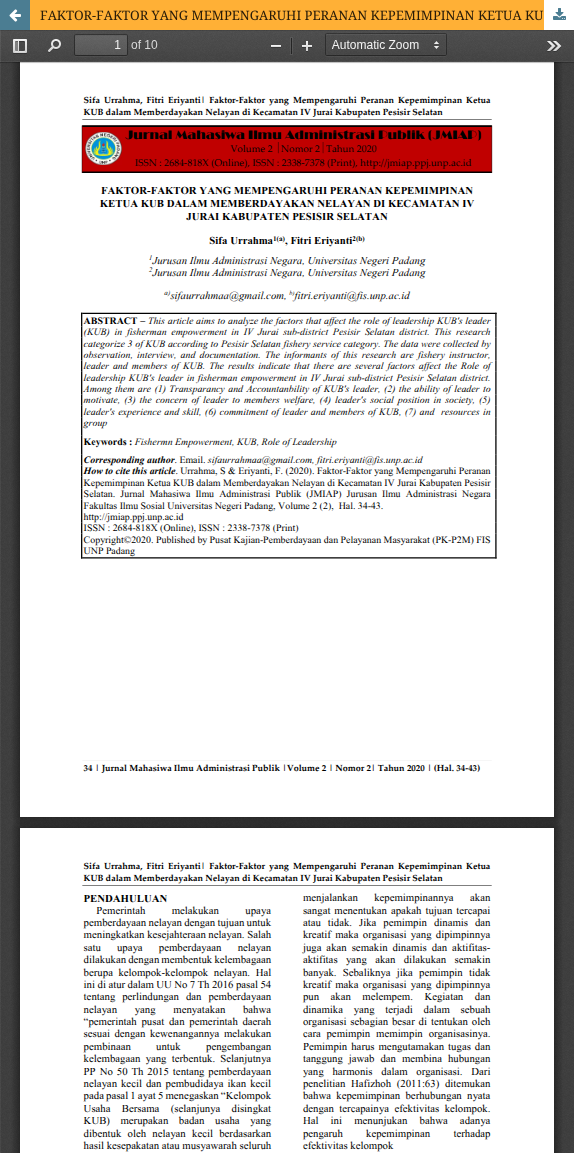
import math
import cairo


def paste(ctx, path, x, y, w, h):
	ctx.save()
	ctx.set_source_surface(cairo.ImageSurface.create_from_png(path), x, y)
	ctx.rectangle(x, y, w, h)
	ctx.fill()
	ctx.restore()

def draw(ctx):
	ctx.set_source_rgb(1, 1, 1)
	ctx.paint()
	ctx.set_source_rgb(1, 0.69, 0.212)
	ctx.rectangle(30, 0, 514, 30)
	ctx.fill()
	ctx.set_source_rgb(0.294, 0.49, 0.573)
	ctx.rectangle(0, 0, 30, 30)
	ctx.fill()
	paste(ctx, 'media/1.png', 9, 9, 12, 13)
	ctx.select_font_face('Noto Serif')
	ctx.set_font_size(13)
	ctx.set_source_rgb(0.161, 0.11, 0.035)
	ctx.move_to(40, 20)
	ctx.show_text('FAKTOR-FAKTOR YANG MEMPENGARUHI PERANAN KEPEMIMPINAN KETUA KU')
	paste(ctx, 'media/2.png', 553, 8, 13, 12)
	paste(ctx, 'media/3.png', 0, 30, 574, 1123)


surface = cairo.ImageSurface(cairo.FORMAT_RGB24, 574, 1153)
ctx = cairo.Context(surface)
options = cairo.FontOptions()
options.set_hint_metrics(cairo.HINT_METRICS_OFF)
options.set_hint_style(cairo.HINT_STYLE_NONE)
ctx.set_font_options(options)
ctx.set_miter_limit(4)
draw(ctx)
surface.write_to_png('image.png')
